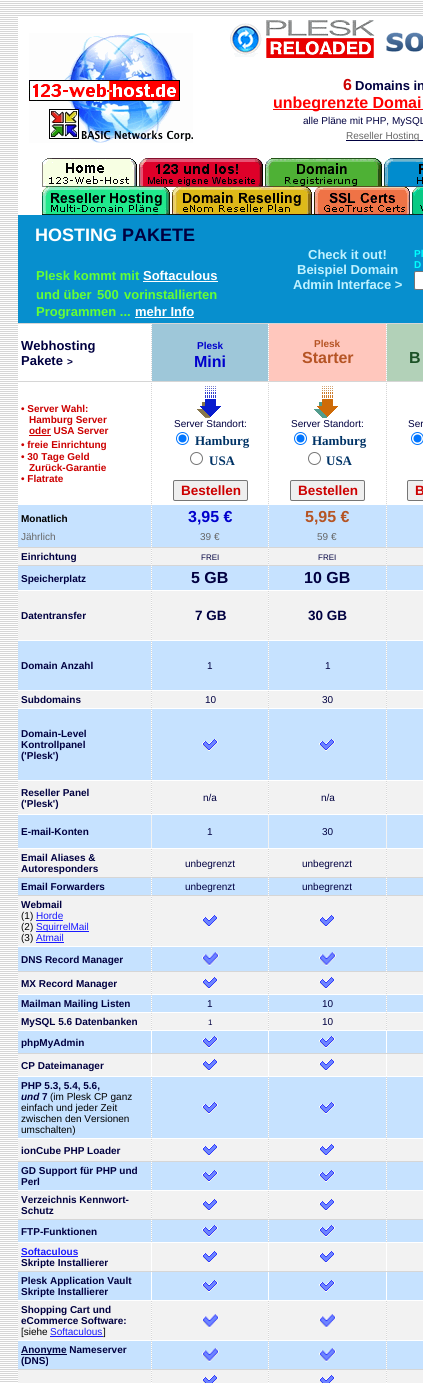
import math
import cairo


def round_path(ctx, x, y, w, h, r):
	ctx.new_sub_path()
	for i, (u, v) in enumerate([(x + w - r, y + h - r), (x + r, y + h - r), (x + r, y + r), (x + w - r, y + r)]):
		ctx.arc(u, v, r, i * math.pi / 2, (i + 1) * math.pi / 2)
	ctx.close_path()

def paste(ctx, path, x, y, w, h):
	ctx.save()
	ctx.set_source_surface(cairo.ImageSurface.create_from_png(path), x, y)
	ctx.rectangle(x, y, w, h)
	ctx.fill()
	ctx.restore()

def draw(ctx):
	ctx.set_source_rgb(1, 1, 1)
	ctx.paint()
	paste(ctx, 'media/1.png', 0, 1, 423, 1381)
	ctx.set_source_rgb(1, 1, 1)
	ctx.rectangle(18, 17, 405, 141)
	ctx.fill()
	paste(ctx, 'media/2.png', 29, 33, 164, 110)
	paste(ctx, 'media/3.png', 230, 20, 145, 38)
	paste(ctx, 'media/4.png', 386, 32, 37, 20)
	ctx.select_font_face('Liberation Sans', cairo.FONT_SLANT_NORMAL, cairo.FONT_WEIGHT_BOLD)
	ctx.set_font_size(16)
	ctx.set_source_rgb(0.8, 0, 0)
	ctx.move_to(343, 90)
	ctx.show_text('6')
	ctx.set_font_size(13)
	ctx.set_source_rgb(0, 0, 0.251)
	ctx.move_to(355, 90)
	ctx.show_text('Domains in')
	ctx.set_source_rgb(1, 0, 0)
	ctx.rectangle(273, 109, 150, 1)
	ctx.fill()
	ctx.set_font_size(16)
	ctx.move_to(273, 108)
	ctx.show_text('unbegrenzte Domai')
	ctx.select_font_face('Liberation Sans')
	ctx.set_font_size(10)
	ctx.set_source_rgb(0, 0, 0.251)
	ctx.move_to(303, 124)
	ctx.show_text('alle Pläne mit PHP, MySQL')
	ctx.rectangle(346, 140, 77, 1)
	ctx.fill()
	ctx.set_source_rgb(0.4, 0.4, 0.4)
	ctx.move_to(346, 139)
	ctx.show_text('Reseller Hosting')
	ctx.set_source_rgb(1, 1, 1)
	ctx.rectangle(18, 159, 24, 55)
	ctx.fill()
	paste(ctx, 'media/5.png', 42, 158, 381, 57)
	ctx.set_source_rgb(0.031, 0.561, 0.808)
	ctx.rectangle(18, 215, 405, 108)
	ctx.fill()
	ctx.select_font_face('Liberation Sans', cairo.FONT_SLANT_NORMAL, cairo.FONT_WEIGHT_BOLD)
	ctx.set_font_size(18)
	ctx.set_source_rgb(1, 1, 1)
	ctx.move_to(35, 241)
	ctx.show_text('HOSTING')
	ctx.set_source_rgb(0, 0, 0.251)
	ctx.move_to(122, 241)
	ctx.show_text('PAKETE')
	ctx.set_font_size(13)
	ctx.set_source_rgb(0.4, 1, 0.2)
	ctx.move_to(36, 280)
	ctx.show_text('Plesk kommt mit')
	ctx.set_source_rgb(1, 1, 1)
	ctx.move_to(143, 280)
	ctx.show_text('Softaculous')
	ctx.rectangle(143, 281, 75, 1)
	ctx.fill()
	ctx.set_source_rgb(0.4, 1, 0.2)
	for x, y, s in [
		(36, 299, 'und über'),
		(97, 299, '500'),
		(124, 299, 'vorinstallierten'),
		(36, 316, 'Programmen ...'),
	]:
		ctx.move_to(x, y)
		ctx.show_text(s)
	ctx.set_source_rgb(1, 1, 1)
	ctx.move_to(135, 316)
	ctx.show_text('mehr Info')
	ctx.rectangle(135, 317, 59, 1)
	ctx.fill()
	ctx.set_source_rgb(0.753, 0.949, 1)
	for x, y, s in [
		(308, 259, 'Check it out!'),
		(297, 274, 'Beispiel Domain'),
		(293, 289, 'Admin Interface >'),
	]:
		ctx.move_to(x, y)
		ctx.show_text(s)
	ctx.set_font_size(10)
	ctx.set_source_rgb(0, 1, 1)
	ctx.move_to(414, 257)
	ctx.show_text('Pl')
	ctx.move_to(414, 268)
	ctx.show_text('D')
	ctx.set_source_rgb(1, 1, 1)
	round_path(ctx, 414.5, 271.5, 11, 18, 1.5)
	ctx.fill_preserve()
	ctx.set_source_rgb(0.463, 0.463, 0.463)
	ctx.set_line_width(1)
	ctx.stroke()
	ctx.set_source_rgb(1, 1, 1)
	ctx.rectangle(18, 325, 133, 55)
	ctx.fill()
	ctx.set_font_size(13)
	ctx.set_source_rgb(0, 0, 0.251)
	ctx.move_to(21, 350)
	ctx.show_text('Webhosting')
	ctx.move_to(21, 365)
	ctx.show_text('Pakete')
	ctx.set_font_size(10)
	ctx.move_to(67, 365)
	ctx.show_text('>')
	ctx.set_source_rgb(0.62, 0.78, 0.851)
	ctx.rectangle(152, 324, 116, 57)
	ctx.fill()
	ctx.set_source_rgb(0, 0, 0.8)
	ctx.move_to(197, 349)
	ctx.show_text('Plesk')
	ctx.set_font_size(16)
	ctx.move_to(194, 367)
	ctx.show_text('Mini')
	ctx.set_source_rgb(1, 0.78, 0.741)
	ctx.rectangle(269, 324, 117, 57)
	ctx.fill()
	ctx.set_font_size(10)
	ctx.set_source_rgb(0.71, 0.329, 0.141)
	ctx.move_to(314, 347)
	ctx.show_text('Plesk')
	ctx.set_font_size(16)
	ctx.move_to(302, 363)
	ctx.show_text('Starter')
	ctx.set_source_rgb(0.698, 0.82, 0.722)
	ctx.rectangle(387, 324, 36, 57)
	ctx.fill()
	ctx.set_source_rgb(0.106, 0.318, 0.149)
	ctx.move_to(409, 363)
	ctx.show_text('B')
	ctx.set_source_rgb(1, 1, 1)
	ctx.rectangle(18, 383, 133, 121)
	ctx.fill()
	ctx.set_font_size(10)
	ctx.set_source_rgb(0.8, 0, 0)
	for x, y, s in [
		(21, 412, '• Server Wahl:'),
		(29, 423, 'Hamburg Server'),
		(29, 434, 'oder USA Server'),
	]:
		ctx.move_to(x, y)
		ctx.show_text(s)
	ctx.rectangle(29, 435, 22, 1)
	ctx.fill()
	for x, y, s in [
		(21, 448, '• freie Einrichtung'),
		(21, 460, '• 30 Tage Geld'),
		(29, 471, 'Zurück-Garantie'),
		(21, 482, '• Flatrate'),
	]:
		ctx.move_to(x, y)
		ctx.show_text(s)
	ctx.set_source_rgb(1, 1, 1)
	ctx.rectangle(152, 383, 116, 121)
	ctx.fill()
	paste(ctx, 'media/6.png', 197, 386, 24, 32)
	ctx.select_font_face('Liberation Sans')
	ctx.set_source_rgb(0, 0, 0.251)
	ctx.move_to(174, 427)
	ctx.show_text('Server Standort:')
	ctx.new_path()
	ctx.arc(182.5, 438.5, 6, 0, 2 * math.pi)
	ctx.set_source_rgb(0, 0.459, 1)
	ctx.stroke()
	ctx.arc(182.5, 438.5, 4, 0, 2 * math.pi)
	ctx.fill()
	ctx.select_font_face('Liberation Serif', cairo.FONT_SLANT_NORMAL, cairo.FONT_WEIGHT_BOLD)
	ctx.set_font_size(13)
	ctx.set_source_rgb(0, 0.2, 0.4)
	ctx.move_to(195, 445)
	ctx.show_text('Hamburg')
	ctx.new_path()
	ctx.arc(196.5, 458.5, 6, 0, 2 * math.pi)
	ctx.set_source_rgb(0.463, 0.463, 0.463)
	ctx.stroke()
	ctx.set_source_rgb(0, 0.2, 0.4)
	ctx.move_to(209, 465)
	ctx.show_text('USA')
	ctx.set_source_rgb(0.937, 0.937, 0.937)
	round_path(ctx, 173.5, 480.5, 74, 20, 1.5)
	ctx.fill_preserve()
	ctx.set_source_rgb(0.463, 0.463, 0.463)
	ctx.stroke()
	ctx.select_font_face('Liberation Sans', cairo.FONT_SLANT_NORMAL, cairo.FONT_WEIGHT_BOLD)
	ctx.set_font_size(13.5)
	ctx.set_source_rgb(0.8, 0, 0)
	ctx.move_to(181, 495)
	ctx.show_text('Bestellen')
	ctx.set_source_rgb(1, 1, 1)
	ctx.rectangle(269, 383, 117, 121)
	ctx.fill()
	paste(ctx, 'media/7.png', 314, 386, 24, 32)
	ctx.select_font_face('Liberation Sans')
	ctx.set_font_size(10)
	ctx.set_source_rgb(0, 0, 0.251)
	ctx.move_to(291, 427)
	ctx.show_text('Server Standort:')
	ctx.new_path()
	ctx.arc(300.5, 438.5, 6, 0, 2 * math.pi)
	ctx.set_source_rgb(0, 0.459, 1)
	ctx.stroke()
	ctx.arc(300.5, 438.5, 4, 0, 2 * math.pi)
	ctx.fill()
	ctx.select_font_face('Liberation Serif', cairo.FONT_SLANT_NORMAL, cairo.FONT_WEIGHT_BOLD)
	ctx.set_font_size(13)
	ctx.set_source_rgb(0, 0.2, 0.4)
	ctx.move_to(312, 445)
	ctx.show_text('Hamburg')
	ctx.new_path()
	ctx.arc(314.5, 458.5, 6, 0, 2 * math.pi)
	ctx.set_source_rgb(0.463, 0.463, 0.463)
	ctx.stroke()
	ctx.set_source_rgb(0, 0.2, 0.4)
	ctx.move_to(326, 465)
	ctx.show_text('USA')
	ctx.set_source_rgb(0.937, 0.937, 0.937)
	round_path(ctx, 290.5, 480.5, 74, 20, 1.5)
	ctx.fill_preserve()
	ctx.set_source_rgb(0.463, 0.463, 0.463)
	ctx.stroke()
	ctx.select_font_face('Liberation Sans', cairo.FONT_SLANT_NORMAL, cairo.FONT_WEIGHT_BOLD)
	ctx.set_font_size(13.5)
	ctx.set_source_rgb(0.8, 0, 0)
	ctx.move_to(298, 495)
	ctx.show_text('Bestellen')
	ctx.set_source_rgb(1, 1, 1)
	ctx.rectangle(387, 383, 36, 121)
	ctx.fill()
	ctx.select_font_face('Liberation Sans')
	ctx.set_font_size(10)
	ctx.set_source_rgb(0, 0, 0.251)
	ctx.move_to(408, 427)
	ctx.show_text('Ser')
	ctx.new_path()
	ctx.arc(417.5, 438.5, 6, 0, 2 * math.pi)
	ctx.set_source_rgb(0, 0.459, 1)
	ctx.stroke()
	ctx.arc(417.5, 438.5, 4, 0, 2 * math.pi)
	ctx.fill()
	ctx.set_source_rgb(0.937, 0.937, 0.937)
	round_path(ctx, 407.5, 480.5, 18, 20, 1.5)
	ctx.fill_preserve()
	ctx.set_source_rgb(0.463, 0.463, 0.463)
	ctx.stroke()
	ctx.select_font_face('Liberation Sans', cairo.FONT_SLANT_NORMAL, cairo.FONT_WEIGHT_BOLD)
	ctx.set_font_size(13.5)
	ctx.set_source_rgb(0.8, 0, 0)
	ctx.move_to(415, 495)
	ctx.show_text('B')
	ctx.set_source_rgb(0.776, 0.886, 1)
	ctx.rectangle(18, 505, 133, 42)
	ctx.fill()
	ctx.set_font_size(10)
	ctx.set_source_rgb(0, 0, 0)
	ctx.move_to(21, 522)
	ctx.show_text('Monatlich')
	ctx.select_font_face('Liberation Sans')
	ctx.set_source_rgb(0.4, 0.4, 0.4)
	ctx.move_to(21, 540)
	ctx.show_text('Jährlich')
	ctx.set_source_rgb(0.776, 0.886, 1)
	ctx.rectangle(152, 505, 116, 42)
	ctx.fill()
	ctx.select_font_face('Liberation Sans', cairo.FONT_SLANT_NORMAL, cairo.FONT_WEIGHT_BOLD)
	ctx.set_font_size(16)
	ctx.set_source_rgb(0, 0, 0.8)
	ctx.move_to(188, 522)
	ctx.show_text('3,95 €')
	ctx.select_font_face('Liberation Sans')
	ctx.set_font_size(10)
	ctx.set_source_rgb(0.4, 0.4, 0.4)
	ctx.move_to(200, 540)
	ctx.show_text('39 €')
	ctx.set_source_rgb(0.776, 0.886, 1)
	ctx.rectangle(269, 505, 117, 42)
	ctx.fill()
	ctx.select_font_face('Liberation Sans', cairo.FONT_SLANT_NORMAL, cairo.FONT_WEIGHT_BOLD)
	ctx.set_font_size(16)
	ctx.set_source_rgb(0.71, 0.329, 0.141)
	ctx.move_to(305, 522)
	ctx.show_text('5,95 €')
	ctx.select_font_face('Liberation Sans')
	ctx.set_font_size(10)
	ctx.set_source_rgb(0.4, 0.4, 0.4)
	ctx.move_to(317, 540)
	ctx.show_text('59 €')
	ctx.set_source_rgb(0.776, 0.886, 1)
	ctx.rectangle(387, 505, 36, 42)
	ctx.fill()
	ctx.set_source_rgb(0.949, 0.949, 0.949)
	ctx.rectangle(18, 548, 133, 17)
	ctx.fill()
	ctx.select_font_face('Liberation Sans', cairo.FONT_SLANT_NORMAL, cairo.FONT_WEIGHT_BOLD)
	ctx.set_source_rgb(0, 0, 0.251)
	ctx.move_to(21, 560)
	ctx.show_text('Einrichtung')
	ctx.set_source_rgb(0.949, 0.949, 0.949)
	ctx.rectangle(152, 548, 116, 17)
	ctx.fill()
	ctx.select_font_face('Liberation Sans')
	ctx.set_font_size(8)
	ctx.set_source_rgb(0, 0, 0.251)
	ctx.move_to(201, 560)
	ctx.show_text('FREI')
	ctx.set_source_rgb(0.949, 0.949, 0.949)
	ctx.rectangle(269, 548, 117, 17)
	ctx.fill()
	ctx.set_source_rgb(0, 0, 0.251)
	ctx.move_to(318, 560)
	ctx.show_text('FREI')
	ctx.set_source_rgb(0.949, 0.949, 0.949)
	ctx.rectangle(387, 548, 36, 17)
	ctx.fill()
	ctx.set_source_rgb(0.776, 0.886, 1)
	ctx.rectangle(18, 566, 133, 24)
	ctx.fill()
	ctx.select_font_face('Liberation Sans', cairo.FONT_SLANT_NORMAL, cairo.FONT_WEIGHT_BOLD)
	ctx.set_font_size(10)
	ctx.set_source_rgb(0, 0, 0.251)
	ctx.move_to(21, 582)
	ctx.show_text('Speicherplatz')
	ctx.set_source_rgb(0.776, 0.886, 1)
	ctx.rectangle(152, 566, 116, 24)
	ctx.fill()
	ctx.set_font_size(16)
	ctx.set_source_rgb(0, 0, 0.251)
	ctx.move_to(191, 583)
	ctx.show_text('5 GB')
	ctx.set_source_rgb(0.776, 0.886, 1)
	ctx.rectangle(269, 566, 117, 24)
	ctx.fill()
	ctx.set_source_rgb(0, 0, 0.251)
	ctx.move_to(304, 583)
	ctx.show_text('10 GB')
	ctx.set_source_rgb(0.776, 0.886, 1)
	ctx.rectangle(387, 566, 36, 24)
	ctx.fill()
	ctx.set_source_rgb(0.949, 0.949, 0.949)
	ctx.rectangle(18, 591, 133, 49)
	ctx.fill()
	ctx.set_font_size(10)
	ctx.set_source_rgb(0, 0, 0.251)
	ctx.move_to(21, 619)
	ctx.show_text('Datentransfer')
	ctx.set_source_rgb(0.949, 0.949, 0.949)
	ctx.rectangle(152, 591, 116, 49)
	ctx.fill()
	ctx.set_font_size(13.5)
	ctx.set_source_rgb(0, 0, 0.251)
	ctx.move_to(195, 620)
	ctx.show_text('7 GB')
	ctx.set_source_rgb(0.949, 0.949, 0.949)
	ctx.rectangle(269, 591, 117, 49)
	ctx.fill()
	ctx.set_source_rgb(0, 0, 0.251)
	ctx.move_to(308, 620)
	ctx.show_text('30 GB')
	ctx.set_source_rgb(0.949, 0.949, 0.949)
	ctx.rectangle(387, 591, 36, 49)
	ctx.fill()
	ctx.set_source_rgb(0.776, 0.886, 1)
	ctx.rectangle(18, 641, 133, 49)
	ctx.fill()
	ctx.set_font_size(10)
	ctx.set_source_rgb(0, 0, 0.251)
	ctx.move_to(21, 669)
	ctx.show_text('Domain Anzahl')
	ctx.set_source_rgb(0.776, 0.886, 1)
	ctx.rectangle(152, 641, 116, 49)
	ctx.fill()
	ctx.select_font_face('Liberation Sans')
	ctx.set_source_rgb(0, 0, 0.251)
	ctx.move_to(207, 669)
	ctx.show_text('1')
	ctx.set_source_rgb(0.776, 0.886, 1)
	ctx.rectangle(269, 641, 117, 49)
	ctx.fill()
	ctx.set_source_rgb(0, 0, 0.251)
	ctx.move_to(325, 669)
	ctx.show_text('1')
	ctx.set_source_rgb(0.776, 0.886, 1)
	ctx.rectangle(387, 641, 36, 49)
	ctx.fill()
	ctx.set_source_rgb(0.949, 0.949, 0.949)
	ctx.rectangle(18, 691, 133, 17)
	ctx.fill()
	ctx.select_font_face('Liberation Sans', cairo.FONT_SLANT_NORMAL, cairo.FONT_WEIGHT_BOLD)
	ctx.set_source_rgb(0, 0, 0.251)
	ctx.move_to(21, 703)
	ctx.show_text('Subdomains')
	ctx.set_source_rgb(0.949, 0.949, 0.949)
	ctx.rectangle(152, 691, 116, 17)
	ctx.fill()
	ctx.select_font_face('Liberation Sans')
	ctx.set_source_rgb(0, 0, 0.251)
	ctx.move_to(205, 703)
	ctx.show_text('10')
	ctx.set_source_rgb(0.949, 0.949, 0.949)
	ctx.rectangle(269, 691, 117, 17)
	ctx.fill()
	ctx.set_source_rgb(0, 0, 0.251)
	ctx.move_to(322, 703)
	ctx.show_text('30')
	ctx.set_source_rgb(0.949, 0.949, 0.949)
	ctx.rectangle(387, 691, 36, 17)
	ctx.fill()
	ctx.set_source_rgb(0.776, 0.886, 1)
	ctx.rectangle(18, 709, 133, 71)
	ctx.fill()
	ctx.select_font_face('Liberation Sans', cairo.FONT_SLANT_NORMAL, cairo.FONT_WEIGHT_BOLD)
	ctx.set_source_rgb(0, 0, 0.251)
	for x, y, s in [
		(21, 737, 'Domain-Level'),
		(21, 748, 'Kontrollpanel'),
		(21, 759, '(\'Plesk\')'),
	]:
		ctx.move_to(x, y)
		ctx.show_text(s)
	ctx.set_source_rgb(0.776, 0.886, 1)
	ctx.rectangle(152, 709, 116, 71)
	ctx.fill()
	paste(ctx, 'media/8.png', 202, 739, 16, 12)
	ctx.rectangle(269, 709, 117, 71)
	ctx.fill()
	paste(ctx, 'media/8.png', 319, 739, 16, 12)
	ctx.rectangle(387, 709, 36, 71)
	ctx.fill()
	ctx.set_source_rgb(0.949, 0.949, 0.949)
	ctx.rectangle(18, 781, 133, 33)
	ctx.fill()
	ctx.set_source_rgb(0, 0, 0.251)
	ctx.move_to(21, 796)
	ctx.show_text('Reseller Panel')
	ctx.move_to(21, 807)
	ctx.show_text('(\'Plesk\')')
	ctx.set_source_rgb(0.949, 0.949, 0.949)
	ctx.rectangle(152, 781, 116, 33)
	ctx.fill()
	ctx.select_font_face('Liberation Sans')
	ctx.set_source_rgb(0, 0, 0.251)
	ctx.move_to(203, 801)
	ctx.show_text('n/a')
	ctx.set_source_rgb(0.949, 0.949, 0.949)
	ctx.rectangle(269, 781, 117, 33)
	ctx.fill()
	ctx.set_source_rgb(0, 0, 0.251)
	ctx.move_to(321, 801)
	ctx.show_text('n/a')
	ctx.set_source_rgb(0.949, 0.949, 0.949)
	ctx.rectangle(387, 781, 36, 33)
	ctx.rectangle(151, 815, 236, 33)
	ctx.fill()
	ctx.set_source_rgb(0.776, 0.886, 1)
	ctx.rectangle(18, 815, 133, 33)
	ctx.fill()
	ctx.select_font_face('Liberation Sans', cairo.FONT_SLANT_NORMAL, cairo.FONT_WEIGHT_BOLD)
	ctx.set_source_rgb(0, 0, 0.251)
	ctx.move_to(21, 835)
	ctx.show_text('E-mail-Konten')
	ctx.set_source_rgb(0.776, 0.886, 1)
	ctx.rectangle(152, 815, 116, 33)
	ctx.fill()
	ctx.select_font_face('Liberation Sans')
	ctx.set_source_rgb(0, 0, 0.251)
	ctx.move_to(207, 835)
	ctx.show_text('1')
	ctx.set_source_rgb(0.776, 0.886, 1)
	ctx.rectangle(269, 815, 117, 33)
	ctx.fill()
	ctx.set_source_rgb(0, 0, 0.251)
	ctx.move_to(322, 835)
	ctx.show_text('30')
	ctx.set_source_rgb(0.776, 0.886, 1)
	ctx.rectangle(387, 815, 36, 33)
	ctx.fill()
	ctx.set_source_rgb(0.949, 0.949, 0.949)
	ctx.rectangle(18, 849, 133, 28)
	ctx.fill()
	ctx.select_font_face('Liberation Sans', cairo.FONT_SLANT_NORMAL, cairo.FONT_WEIGHT_BOLD)
	ctx.set_source_rgb(0, 0, 0.251)
	ctx.move_to(21, 861)
	ctx.show_text('Email Aliases &')
	ctx.move_to(21, 872)
	ctx.show_text('Autoresponders')
	ctx.set_source_rgb(0.949, 0.949, 0.949)
	ctx.rectangle(152, 849, 116, 28)
	ctx.fill()
	ctx.select_font_face('Liberation Sans')
	ctx.set_source_rgb(0, 0, 0.251)
	ctx.move_to(185, 867)
	ctx.show_text('unbegrenzt')
	ctx.set_source_rgb(0.949, 0.949, 0.949)
	ctx.rectangle(269, 849, 117, 28)
	ctx.fill()
	ctx.set_source_rgb(0, 0, 0.251)
	ctx.move_to(302, 867)
	ctx.show_text('unbegrenzt')
	ctx.set_source_rgb(0.949, 0.949, 0.949)
	ctx.rectangle(387, 849, 36, 28)
	ctx.fill()
	ctx.set_source_rgb(0.776, 0.886, 1)
	ctx.rectangle(18, 878, 133, 17)
	ctx.fill()
	ctx.select_font_face('Liberation Sans', cairo.FONT_SLANT_NORMAL, cairo.FONT_WEIGHT_BOLD)
	ctx.set_source_rgb(0, 0, 0.251)
	ctx.move_to(21, 890)
	ctx.show_text('Email Forwarders')
	ctx.set_source_rgb(0.776, 0.886, 1)
	ctx.rectangle(152, 878, 116, 17)
	ctx.fill()
	ctx.select_font_face('Liberation Sans')
	ctx.set_source_rgb(0, 0, 0.251)
	ctx.move_to(185, 890)
	ctx.show_text('unbegrenzt')
	ctx.set_source_rgb(0.776, 0.886, 1)
	ctx.rectangle(269, 878, 117, 17)
	ctx.fill()
	ctx.set_source_rgb(0, 0, 0.251)
	ctx.move_to(302, 890)
	ctx.show_text('unbegrenzt')
	ctx.set_source_rgb(0.776, 0.886, 1)
	ctx.rectangle(387, 878, 36, 17)
	ctx.fill()
	ctx.set_source_rgb(0.949, 0.949, 0.949)
	ctx.rectangle(18, 896, 133, 50)
	ctx.fill()
	ctx.select_font_face('Liberation Sans', cairo.FONT_SLANT_NORMAL, cairo.FONT_WEIGHT_BOLD)
	ctx.set_source_rgb(0, 0, 0.251)
	ctx.move_to(21, 908)
	ctx.show_text('Webmail')
	ctx.select_font_face('Liberation Sans')
	ctx.set_source_rgb(0, 0, 0)
	ctx.move_to(21, 919)
	ctx.show_text('(1)')
	ctx.set_source_rgb(0.102, 0.102, 1)
	ctx.move_to(36, 919)
	ctx.show_text('Horde')
	ctx.rectangle(36, 920, 27, 1)
	ctx.fill()
	ctx.set_source_rgb(0, 0, 0)
	ctx.move_to(21, 930)
	ctx.show_text('(2)')
	ctx.set_source_rgb(0.102, 0.102, 1)
	ctx.rectangle(36, 931, 53, 1)
	ctx.fill()
	ctx.move_to(36, 930)
	ctx.show_text('SquirrelMail')
	ctx.set_source_rgb(0, 0, 0)
	ctx.move_to(21, 941)
	ctx.show_text('(3)')
	ctx.set_source_rgb(0.102, 0.102, 1)
	ctx.move_to(36, 941)
	ctx.show_text('Atmail')
	ctx.rectangle(36, 942, 28, 1)
	ctx.fill()
	ctx.set_source_rgb(0.949, 0.949, 0.949)
	ctx.rectangle(152, 896, 116, 50)
	ctx.fill()
	paste(ctx, 'media/9.png', 202, 915, 16, 12)
	ctx.rectangle(269, 896, 117, 50)
	ctx.fill()
	paste(ctx, 'media/9.png', 319, 915, 16, 12)
	ctx.rectangle(387, 896, 36, 50)
	ctx.fill()
	ctx.set_source_rgb(0.776, 0.886, 1)
	ctx.rectangle(18, 947, 133, 24)
	ctx.fill()
	ctx.select_font_face('Liberation Sans', cairo.FONT_SLANT_NORMAL, cairo.FONT_WEIGHT_BOLD)
	ctx.set_source_rgb(0, 0, 0.251)
	ctx.move_to(21, 963)
	ctx.show_text('DNS Record Manager')
	ctx.set_source_rgb(0.776, 0.886, 1)
	ctx.rectangle(152, 947, 116, 24)
	ctx.fill()
	paste(ctx, 'media/10.png', 202, 952, 17, 14)
	ctx.rectangle(269, 947, 117, 24)
	ctx.fill()
	paste(ctx, 'media/10.png', 319, 952, 17, 14)
	ctx.rectangle(387, 947, 36, 24)
	ctx.fill()
	ctx.set_source_rgb(0.949, 0.949, 0.949)
	ctx.rectangle(18, 972, 133, 22)
	ctx.fill()
	ctx.set_source_rgb(0, 0, 0.251)
	ctx.move_to(21, 987)
	ctx.show_text('MX Record Manager')
	ctx.set_source_rgb(0.949, 0.949, 0.949)
	ctx.rectangle(152, 972, 116, 22)
	ctx.fill()
	paste(ctx, 'media/9.png', 202, 977, 16, 12)
	ctx.rectangle(269, 972, 117, 22)
	ctx.fill()
	paste(ctx, 'media/9.png', 319, 977, 16, 12)
	ctx.rectangle(387, 972, 36, 22)
	ctx.fill()
	ctx.set_source_rgb(0.776, 0.886, 1)
	ctx.rectangle(18, 995, 133, 17)
	ctx.fill()
	ctx.set_source_rgb(0, 0, 0.251)
	ctx.move_to(21, 1007)
	ctx.show_text('Mailman Mailing Listen')
	ctx.set_source_rgb(0.776, 0.886, 1)
	ctx.rectangle(152, 995, 116, 17)
	ctx.fill()
	ctx.select_font_face('Liberation Sans')
	ctx.set_source_rgb(0, 0, 0.251)
	ctx.move_to(207, 1007)
	ctx.show_text('1')
	ctx.set_source_rgb(0.776, 0.886, 1)
	ctx.rectangle(269, 995, 117, 17)
	ctx.fill()
	ctx.set_source_rgb(0, 0, 0.251)
	ctx.move_to(322, 1007)
	ctx.show_text('10')
	ctx.set_source_rgb(0.776, 0.886, 1)
	ctx.rectangle(387, 995, 36, 17)
	ctx.fill()
	ctx.set_source_rgb(0.949, 0.949, 0.949)
	ctx.rectangle(18, 1013, 133, 17)
	ctx.fill()
	ctx.select_font_face('Liberation Sans', cairo.FONT_SLANT_NORMAL, cairo.FONT_WEIGHT_BOLD)
	ctx.set_source_rgb(0, 0, 0.251)
	ctx.move_to(21, 1025)
	ctx.show_text('MySQL 5.6 Datenbanken')
	ctx.set_source_rgb(0.949, 0.949, 0.949)
	ctx.rectangle(152, 1013, 116, 17)
	ctx.fill()
	ctx.select_font_face('Liberation Sans')
	ctx.set_font_size(8)
	ctx.set_source_rgb(0, 0, 0.251)
	ctx.move_to(208, 1025)
	ctx.show_text('1')
	ctx.set_source_rgb(0.949, 0.949, 0.949)
	ctx.rectangle(269, 1013, 117, 17)
	ctx.fill()
	ctx.set_font_size(10)
	ctx.set_source_rgb(0, 0, 0.251)
	ctx.move_to(322, 1025)
	ctx.show_text('10')
	ctx.set_source_rgb(0.949, 0.949, 0.949)
	ctx.rectangle(387, 1013, 36, 17)
	ctx.fill()
	ctx.set_source_rgb(1, 1, 1)
	ctx.rectangle(151, 1031, 236, 21)
	ctx.fill()
	ctx.set_source_rgb(0.776, 0.886, 1)
	ctx.rectangle(18, 1031, 133, 22)
	ctx.fill()
	ctx.select_font_face('Liberation Sans', cairo.FONT_SLANT_NORMAL, cairo.FONT_WEIGHT_BOLD)
	ctx.set_source_rgb(0, 0, 0.251)
	ctx.move_to(21, 1046)
	ctx.show_text('phpMyAdmin')
	ctx.set_source_rgb(0.776, 0.886, 1)
	ctx.rectangle(152, 1031, 116, 22)
	ctx.fill()
	paste(ctx, 'media/8.png', 202, 1036, 16, 12)
	ctx.rectangle(269, 1031, 117, 22)
	ctx.fill()
	paste(ctx, 'media/8.png', 319, 1036, 16, 12)
	ctx.rectangle(387, 1031, 36, 22)
	ctx.fill()
	ctx.set_source_rgb(1, 1, 1)
	ctx.rectangle(151, 1055, 236, 21)
	ctx.fill()
	ctx.set_source_rgb(0.949, 0.949, 0.949)
	ctx.rectangle(18, 1054, 133, 22)
	ctx.fill()
	ctx.set_source_rgb(0, 0, 0.251)
	ctx.move_to(21, 1069)
	ctx.show_text('CP Dateimanager')
	ctx.set_source_rgb(0.949, 0.949, 0.949)
	ctx.rectangle(152, 1054, 116, 22)
	ctx.fill()
	paste(ctx, 'media/9.png', 202, 1059, 16, 12)
	ctx.rectangle(269, 1054, 117, 22)
	ctx.fill()
	paste(ctx, 'media/9.png', 319, 1059, 16, 12)
	ctx.rectangle(387, 1054, 36, 22)
	ctx.fill()
	ctx.set_source_rgb(0.776, 0.886, 1)
	ctx.rectangle(18, 1077, 133, 61)
	ctx.fill()
	ctx.set_source_rgb(0, 0, 0.251)
	ctx.move_to(21, 1089)
	ctx.show_text('PHP 5.3, 5.4, 5.6,')
	ctx.select_font_face('Liberation Sans', cairo.FONT_SLANT_ITALIC, cairo.FONT_WEIGHT_BOLD)
	ctx.move_to(21, 1100)
	ctx.show_text('und')
	ctx.select_font_face('Liberation Sans', cairo.FONT_SLANT_NORMAL, cairo.FONT_WEIGHT_BOLD)
	ctx.move_to(42, 1100)
	ctx.show_text('7')
	ctx.select_font_face('Liberation Sans')
	ctx.set_source_rgb(0, 0, 0)
	for x, y, s in [
		(50, 1100, '(im Plesk CP ganz'),
		(21, 1111, 'einfach und jeder Zeit'),
		(21, 1122, 'zwischen den Versionen'),
		(21, 1133, 'umschalten)'),
	]:
		ctx.move_to(x, y)
		ctx.show_text(s)
	ctx.set_source_rgb(0.776, 0.886, 1)
	ctx.rectangle(152, 1077, 116, 61)
	ctx.fill()
	paste(ctx, 'media/8.png', 202, 1102, 16, 12)
	ctx.rectangle(269, 1077, 117, 61)
	ctx.fill()
	paste(ctx, 'media/8.png', 319, 1102, 16, 12)
	ctx.rectangle(387, 1077, 36, 61)
	ctx.fill()
	ctx.set_source_rgb(0.949, 0.949, 0.949)
	ctx.rectangle(18, 1139, 133, 22)
	ctx.fill()
	ctx.select_font_face('Liberation Sans', cairo.FONT_SLANT_NORMAL, cairo.FONT_WEIGHT_BOLD)
	ctx.set_source_rgb(0, 0, 0.251)
	ctx.move_to(21, 1154)
	ctx.show_text('ionCube PHP Loader')
	ctx.set_source_rgb(0.949, 0.949, 0.949)
	ctx.rectangle(152, 1139, 116, 22)
	ctx.fill()
	paste(ctx, 'media/9.png', 202, 1144, 16, 12)
	ctx.rectangle(269, 1139, 117, 22)
	ctx.fill()
	paste(ctx, 'media/9.png', 319, 1144, 16, 12)
	ctx.rectangle(387, 1139, 36, 22)
	ctx.fill()
	ctx.set_source_rgb(0.776, 0.886, 1)
	ctx.rectangle(18, 1162, 133, 28)
	ctx.fill()
	ctx.set_source_rgb(0, 0, 0.251)
	ctx.move_to(21, 1174)
	ctx.show_text('GD Support für PHP und')
	ctx.move_to(21, 1185)
	ctx.show_text('Perl')
	ctx.set_source_rgb(0.776, 0.886, 1)
	ctx.rectangle(152, 1162, 116, 28)
	ctx.fill()
	paste(ctx, 'media/8.png', 202, 1170, 16, 12)
	ctx.rectangle(269, 1162, 117, 28)
	ctx.fill()
	paste(ctx, 'media/8.png', 319, 1170, 16, 12)
	ctx.rectangle(387, 1162, 36, 28)
	ctx.fill()
	ctx.set_source_rgb(0.949, 0.949, 0.949)
	ctx.rectangle(18, 1191, 133, 28)
	ctx.fill()
	ctx.set_source_rgb(0, 0, 0.251)
	ctx.move_to(21, 1203)
	ctx.show_text('Verzeichnis Kennwort-')
	ctx.move_to(21, 1214)
	ctx.show_text('Schutz')
	ctx.set_source_rgb(0.949, 0.949, 0.949)
	ctx.rectangle(152, 1191, 116, 28)
	ctx.fill()
	paste(ctx, 'media/9.png', 202, 1199, 16, 12)
	ctx.rectangle(269, 1191, 117, 28)
	ctx.fill()
	paste(ctx, 'media/9.png', 319, 1199, 16, 12)
	ctx.rectangle(387, 1191, 36, 28)
	ctx.fill()
	ctx.set_source_rgb(0.776, 0.886, 1)
	ctx.rectangle(18, 1220, 133, 22)
	ctx.fill()
	ctx.set_source_rgb(0, 0, 0.251)
	ctx.move_to(21, 1235)
	ctx.show_text('FTP-Funktionen')
	ctx.set_source_rgb(0.776, 0.886, 1)
	ctx.rectangle(152, 1220, 116, 22)
	ctx.fill()
	paste(ctx, 'media/8.png', 202, 1225, 16, 12)
	ctx.rectangle(269, 1220, 117, 22)
	ctx.fill()
	paste(ctx, 'media/8.png', 319, 1225, 16, 12)
	ctx.rectangle(387, 1220, 36, 22)
	ctx.fill()
	ctx.set_source_rgb(1, 1, 1)
	ctx.rectangle(151, 1243, 236, 27)
	ctx.fill()
	ctx.set_source_rgb(0.949, 0.949, 0.949)
	ctx.rectangle(18, 1243, 133, 28)
	ctx.fill()
	ctx.set_source_rgb(0.102, 0.102, 1)
	ctx.move_to(21, 1255)
	ctx.show_text('Softaculous')
	ctx.rectangle(21, 1256, 57, 1)
	ctx.fill()
	ctx.set_source_rgb(0, 0, 0.251)
	ctx.move_to(21, 1266)
	ctx.show_text('Skripte Installierer')
	ctx.set_source_rgb(0.949, 0.949, 0.949)
	ctx.rectangle(152, 1243, 116, 28)
	ctx.fill()
	paste(ctx, 'media/9.png', 202, 1251, 16, 12)
	ctx.rectangle(269, 1243, 117, 28)
	ctx.fill()
	paste(ctx, 'media/9.png', 319, 1251, 16, 12)
	ctx.rectangle(387, 1243, 36, 28)
	ctx.fill()
	ctx.set_source_rgb(1, 1, 1)
	ctx.rectangle(151, 1273, 236, 27)
	ctx.fill()
	ctx.set_source_rgb(0.776, 0.886, 1)
	ctx.rectangle(18, 1272, 133, 28)
	ctx.fill()
	ctx.set_source_rgb(0, 0, 0.251)
	ctx.move_to(21, 1284)
	ctx.show_text('Plesk Application Vault')
	ctx.move_to(21, 1295)
	ctx.show_text('Skripte Installierer')
	ctx.set_source_rgb(0.776, 0.886, 1)
	ctx.rectangle(152, 1272, 116, 28)
	ctx.fill()
	paste(ctx, 'media/8.png', 202, 1280, 16, 12)
	ctx.rectangle(269, 1272, 117, 28)
	ctx.fill()
	paste(ctx, 'media/8.png', 319, 1280, 16, 12)
	ctx.rectangle(387, 1272, 36, 28)
	ctx.fill()
	ctx.set_source_rgb(0.949, 0.949, 0.949)
	ctx.rectangle(18, 1301, 133, 39)
	ctx.fill()
	ctx.set_source_rgb(0, 0, 0.251)
	ctx.move_to(21, 1313)
	ctx.show_text('Shopping Cart und')
	ctx.move_to(21, 1324)
	ctx.show_text('eCommerce Software:')
	ctx.select_font_face('Liberation Sans')
	ctx.set_source_rgb(0, 0, 0)
	ctx.move_to(21, 1335)
	ctx.show_text('[siehe')
	ctx.set_source_rgb(0.102, 0.102, 1)
	ctx.move_to(50, 1335)
	ctx.show_text('Softaculous')
	ctx.rectangle(50, 1336, 53, 1)
	ctx.fill()
	ctx.set_source_rgb(0, 0, 0)
	ctx.move_to(103, 1335)
	ctx.show_text(']')
	ctx.set_source_rgb(0.949, 0.949, 0.949)
	ctx.rectangle(152, 1301, 116, 39)
	ctx.fill()
	paste(ctx, 'media/11.png', 202, 1314, 17, 14)
	ctx.rectangle(269, 1301, 117, 39)
	ctx.fill()
	paste(ctx, 'media/11.png', 319, 1314, 17, 14)
	ctx.rectangle(387, 1301, 36, 39)
	ctx.fill()
	ctx.set_source_rgb(0.776, 0.886, 1)
	ctx.rectangle(18, 1341, 133, 28)
	ctx.fill()
	ctx.set_source_rgb(0, 0, 0.251)
	ctx.rectangle(21, 1354, 46, 1)
	ctx.fill()
	ctx.select_font_face('Liberation Sans', cairo.FONT_SLANT_NORMAL, cairo.FONT_WEIGHT_BOLD)
	ctx.move_to(21, 1353)
	ctx.show_text('Anonyme Nameserver')
	ctx.move_to(21, 1364)
	ctx.show_text('(DNS)')
	ctx.set_source_rgb(0.776, 0.886, 1)
	ctx.rectangle(152, 1341, 116, 28)
	ctx.fill()
	paste(ctx, 'media/10.png', 202, 1348, 17, 14)
	ctx.rectangle(269, 1341, 117, 28)
	ctx.fill()
	paste(ctx, 'media/10.png', 319, 1348, 17, 14)
	ctx.rectangle(387, 1341, 36, 28)
	ctx.fill()
	ctx.set_source_rgb(0.949, 0.949, 0.949)
	ctx.rectangle(18, 1370, 133, 13)
	ctx.rectangle(152, 1370, 116, 13)
	ctx.fill()
	paste(ctx, 'media/12.png', 202, 1375, 16, 8)
	ctx.rectangle(269, 1370, 117, 13)
	ctx.fill()
	paste(ctx, 'media/12.png', 319, 1375, 16, 8)
	ctx.rectangle(387, 1370, 36, 13)
	ctx.fill()


surface = cairo.ImageSurface(cairo.FORMAT_RGB24, 423, 1383)
ctx = cairo.Context(surface)
options = cairo.FontOptions()
options.set_hint_metrics(cairo.HINT_METRICS_OFF)
options.set_hint_style(cairo.HINT_STYLE_NONE)
ctx.set_font_options(options)
ctx.set_miter_limit(4)
draw(ctx)
surface.write_to_png('image.png')
